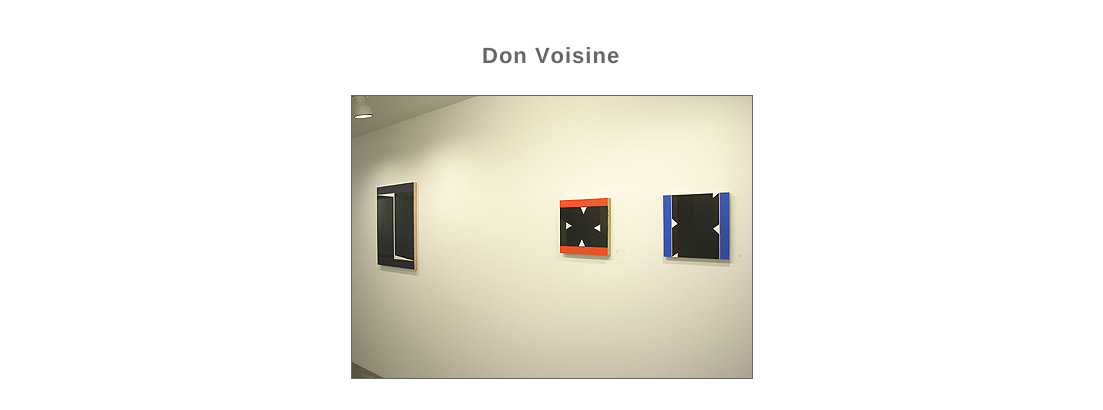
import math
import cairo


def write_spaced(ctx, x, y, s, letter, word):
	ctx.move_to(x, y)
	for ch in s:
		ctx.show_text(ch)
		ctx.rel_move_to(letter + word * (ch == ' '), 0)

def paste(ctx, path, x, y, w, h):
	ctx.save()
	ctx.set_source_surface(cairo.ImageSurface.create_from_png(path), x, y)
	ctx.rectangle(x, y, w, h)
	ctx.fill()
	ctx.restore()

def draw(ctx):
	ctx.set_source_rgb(1, 1, 1)
	ctx.paint()
	ctx.select_font_face('Liberation Sans', cairo.FONT_SLANT_NORMAL, cairo.FONT_WEIGHT_BOLD)
	ctx.set_font_size(22)
	ctx.set_source_rgb(0.4, 0.4, 0.4)
	write_spaced(ctx, 482, 63, 'Don Voisine', 1, 0)
	ctx.rectangle(351.5, 95.5, 401, 283)
	ctx.set_line_width(1)
	ctx.stroke()
	paste(ctx, 'media/1.png', 352, 96, 400, 282)


surface = cairo.ImageSurface(cairo.FORMAT_RGB24, 1103, 410)
ctx = cairo.Context(surface)
options = cairo.FontOptions()
options.set_hint_metrics(cairo.HINT_METRICS_OFF)
options.set_hint_style(cairo.HINT_STYLE_NONE)
ctx.set_font_options(options)
ctx.set_miter_limit(4)
draw(ctx)
surface.write_to_png('image.png')
